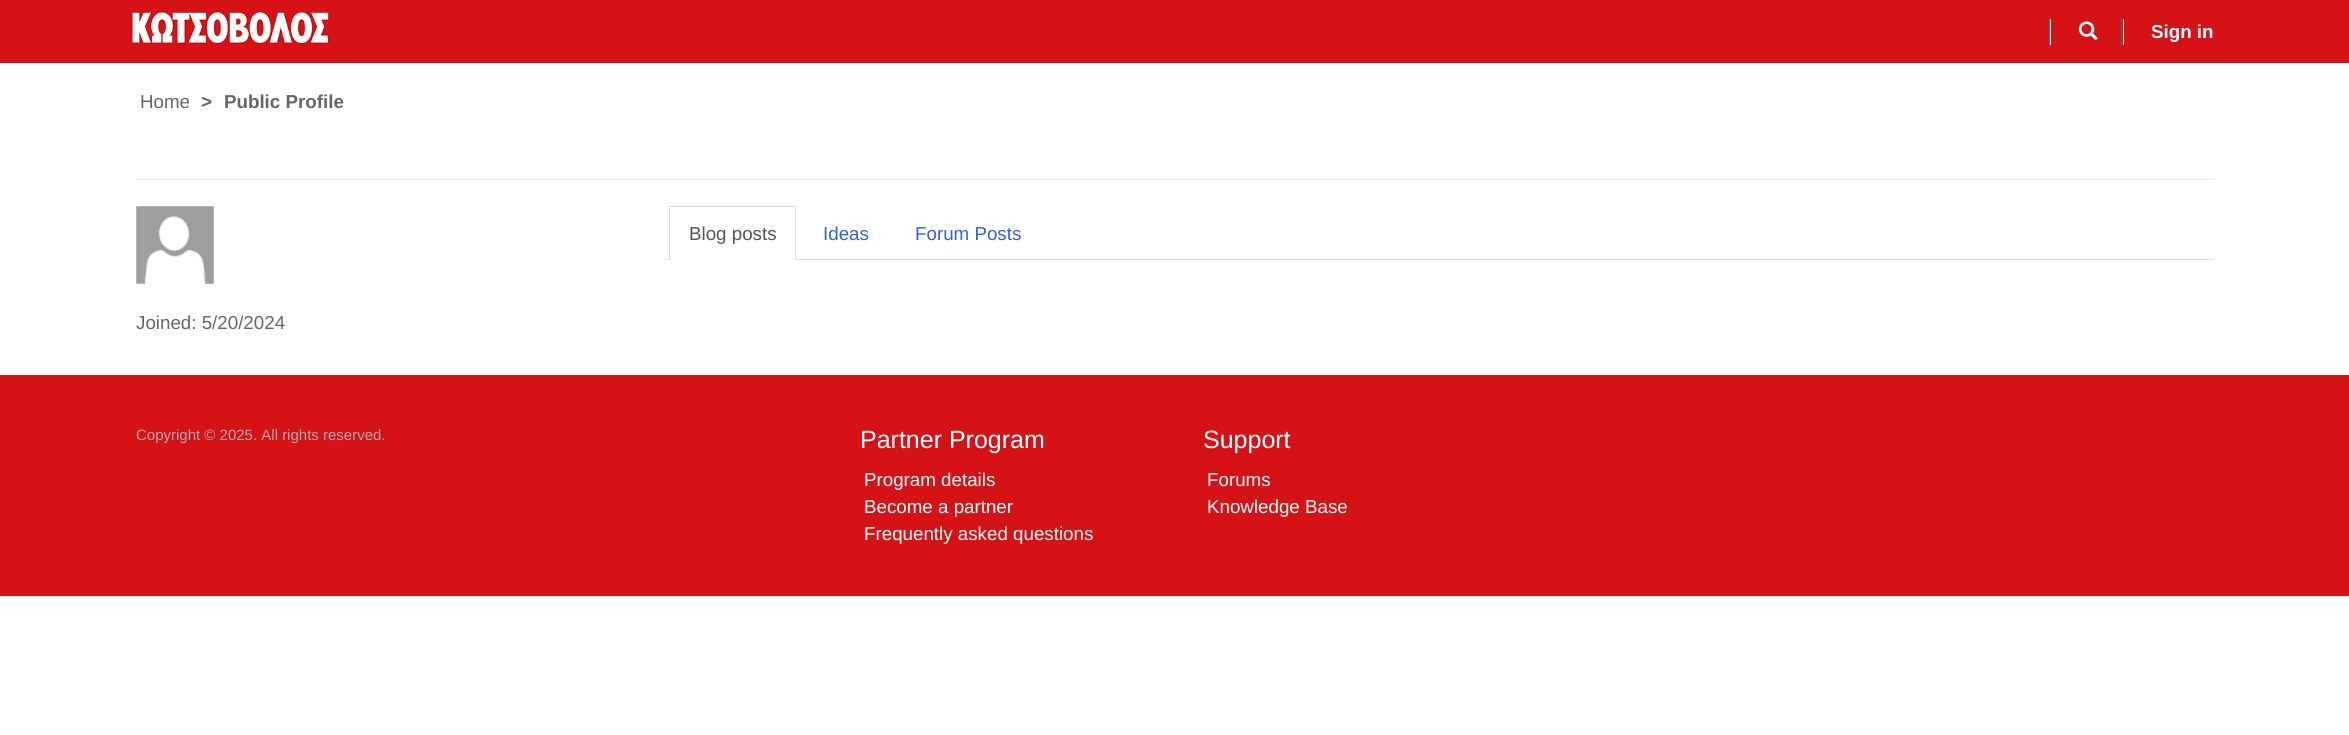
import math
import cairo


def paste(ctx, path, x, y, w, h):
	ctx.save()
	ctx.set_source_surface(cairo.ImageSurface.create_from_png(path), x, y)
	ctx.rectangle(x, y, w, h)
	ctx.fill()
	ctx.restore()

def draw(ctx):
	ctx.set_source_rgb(1, 1, 1)
	ctx.paint()
	ctx.set_source_rgb(0.835, 0.075, 0.09)
	ctx.rectangle(0, 0, 2349, 63)
	ctx.fill()
	paste(ctx, 'media/1.png', 131, 11, 199, 33)
	ctx.set_source_rgb(1, 1, 1)
	ctx.rectangle(2050, 19, 1, 26)
	ctx.fill()
	ctx.set_source_rgb(0.4, 0.4, 0.4)
	ctx.rectangle(2049, 19, 1, 26)
	ctx.fill()
	paste(ctx, 'media/2.png', 2078, 21, 20, 20)
	ctx.set_source_rgb(1, 1, 1)
	ctx.rectangle(2123, 19, 1, 26)
	ctx.fill()
	ctx.set_source_rgb(0.4, 0.4, 0.4)
	ctx.rectangle(2121, 19, 1, 26)
	ctx.fill()
	ctx.select_font_face('Liberation Sans', cairo.FONT_SLANT_NORMAL, cairo.FONT_WEIGHT_BOLD)
	ctx.set_font_size(18.75)
	ctx.set_source_rgb(1, 1, 1)
	ctx.move_to(2151, 38)
	ctx.show_text('Sign in')
	ctx.select_font_face('Liberation Sans')
	ctx.set_source_rgb(0.4, 0.4, 0.4)
	ctx.move_to(140, 108)
	ctx.show_text('Home')
	ctx.select_font_face('Liberation Sans', cairo.FONT_SLANT_NORMAL, cairo.FONT_WEIGHT_BOLD)
	ctx.move_to(201, 108)
	ctx.show_text('>')
	ctx.move_to(224, 108)
	ctx.show_text('Public Profile')
	ctx.set_source_rgb(0.933, 0.933, 0.933)
	ctx.rectangle(136, 179, 2078, 1)
	ctx.fill()
	ctx.set_source_rgb(0.867, 0.867, 0.867)
	ctx.rectangle(665, 259, 1549, 1)
	ctx.fill()
	ctx.set_source_rgb(1, 1, 1)
	ctx.rectangle(669, 259, 127, 1)
	ctx.fill()
	ctx.set_source_rgb(0.867, 0.867, 0.867)
	ctx.rectangle(669, 206, 127, 1)
	ctx.fill()
	ctx.new_path()
	ctx.move_to(796, 206)
	ctx.line_to(796, 260)
	ctx.line_to(795, 259)
	ctx.line_to(795, 208)
	ctx.close_path()
	ctx.fill()
	ctx.new_path()
	ctx.move_to(669, 260)
	ctx.line_to(669, 206)
	ctx.line_to(670, 208)
	ctx.line_to(670, 259)
	ctx.close_path()
	ctx.fill()
	ctx.select_font_face('Liberation Sans')
	ctx.set_source_rgb(0.333, 0.333, 0.333)
	ctx.move_to(689, 240)
	ctx.show_text('Blog posts')
	ctx.set_source_rgb(0.184, 0.373, 0.937)
	ctx.move_to(823, 240)
	ctx.show_text('Ideas')
	ctx.move_to(915, 240)
	ctx.show_text('Forum Posts')
	paste(ctx, 'media/3.png', 136, 206, 78, 78)
	ctx.set_source_rgb(0.4, 0.4, 0.4)
	ctx.move_to(136, 329)
	ctx.show_text('Joined: 5/20/2024')
	ctx.set_source_rgb(0.835, 0.075, 0.09)
	ctx.rectangle(0, 375, 2349, 221)
	ctx.fill()
	ctx.set_font_size(15)
	ctx.set_source_rgb(0.667, 0.667, 0.667)
	ctx.move_to(136, 440)
	ctx.show_text('Copyright © 2025. All rights reserved.')
	ctx.set_font_size(25)
	ctx.set_source_rgb(1, 1, 1)
	ctx.move_to(860, 448)
	ctx.show_text('Partner Program')
	ctx.set_font_size(18.75)
	for x, y, s in [
		(864, 486, 'Program details'),
		(864, 513, 'Become a partner'),
		(864, 540, 'Frequently asked questions'),
	]:
		ctx.move_to(x, y)
		ctx.show_text(s)
	ctx.set_font_size(25)
	ctx.move_to(1203, 448)
	ctx.show_text('Support')
	ctx.set_font_size(18.75)
	ctx.move_to(1207, 486)
	ctx.show_text('Forums')
	ctx.move_to(1207, 513)
	ctx.show_text('Knowledge Base')


surface = cairo.ImageSurface(cairo.FORMAT_RGB24, 2349, 735)
ctx = cairo.Context(surface)
options = cairo.FontOptions()
options.set_hint_metrics(cairo.HINT_METRICS_OFF)
options.set_hint_style(cairo.HINT_STYLE_NONE)
ctx.set_font_options(options)
ctx.set_miter_limit(4)
draw(ctx)
surface.write_to_png('image.png')
